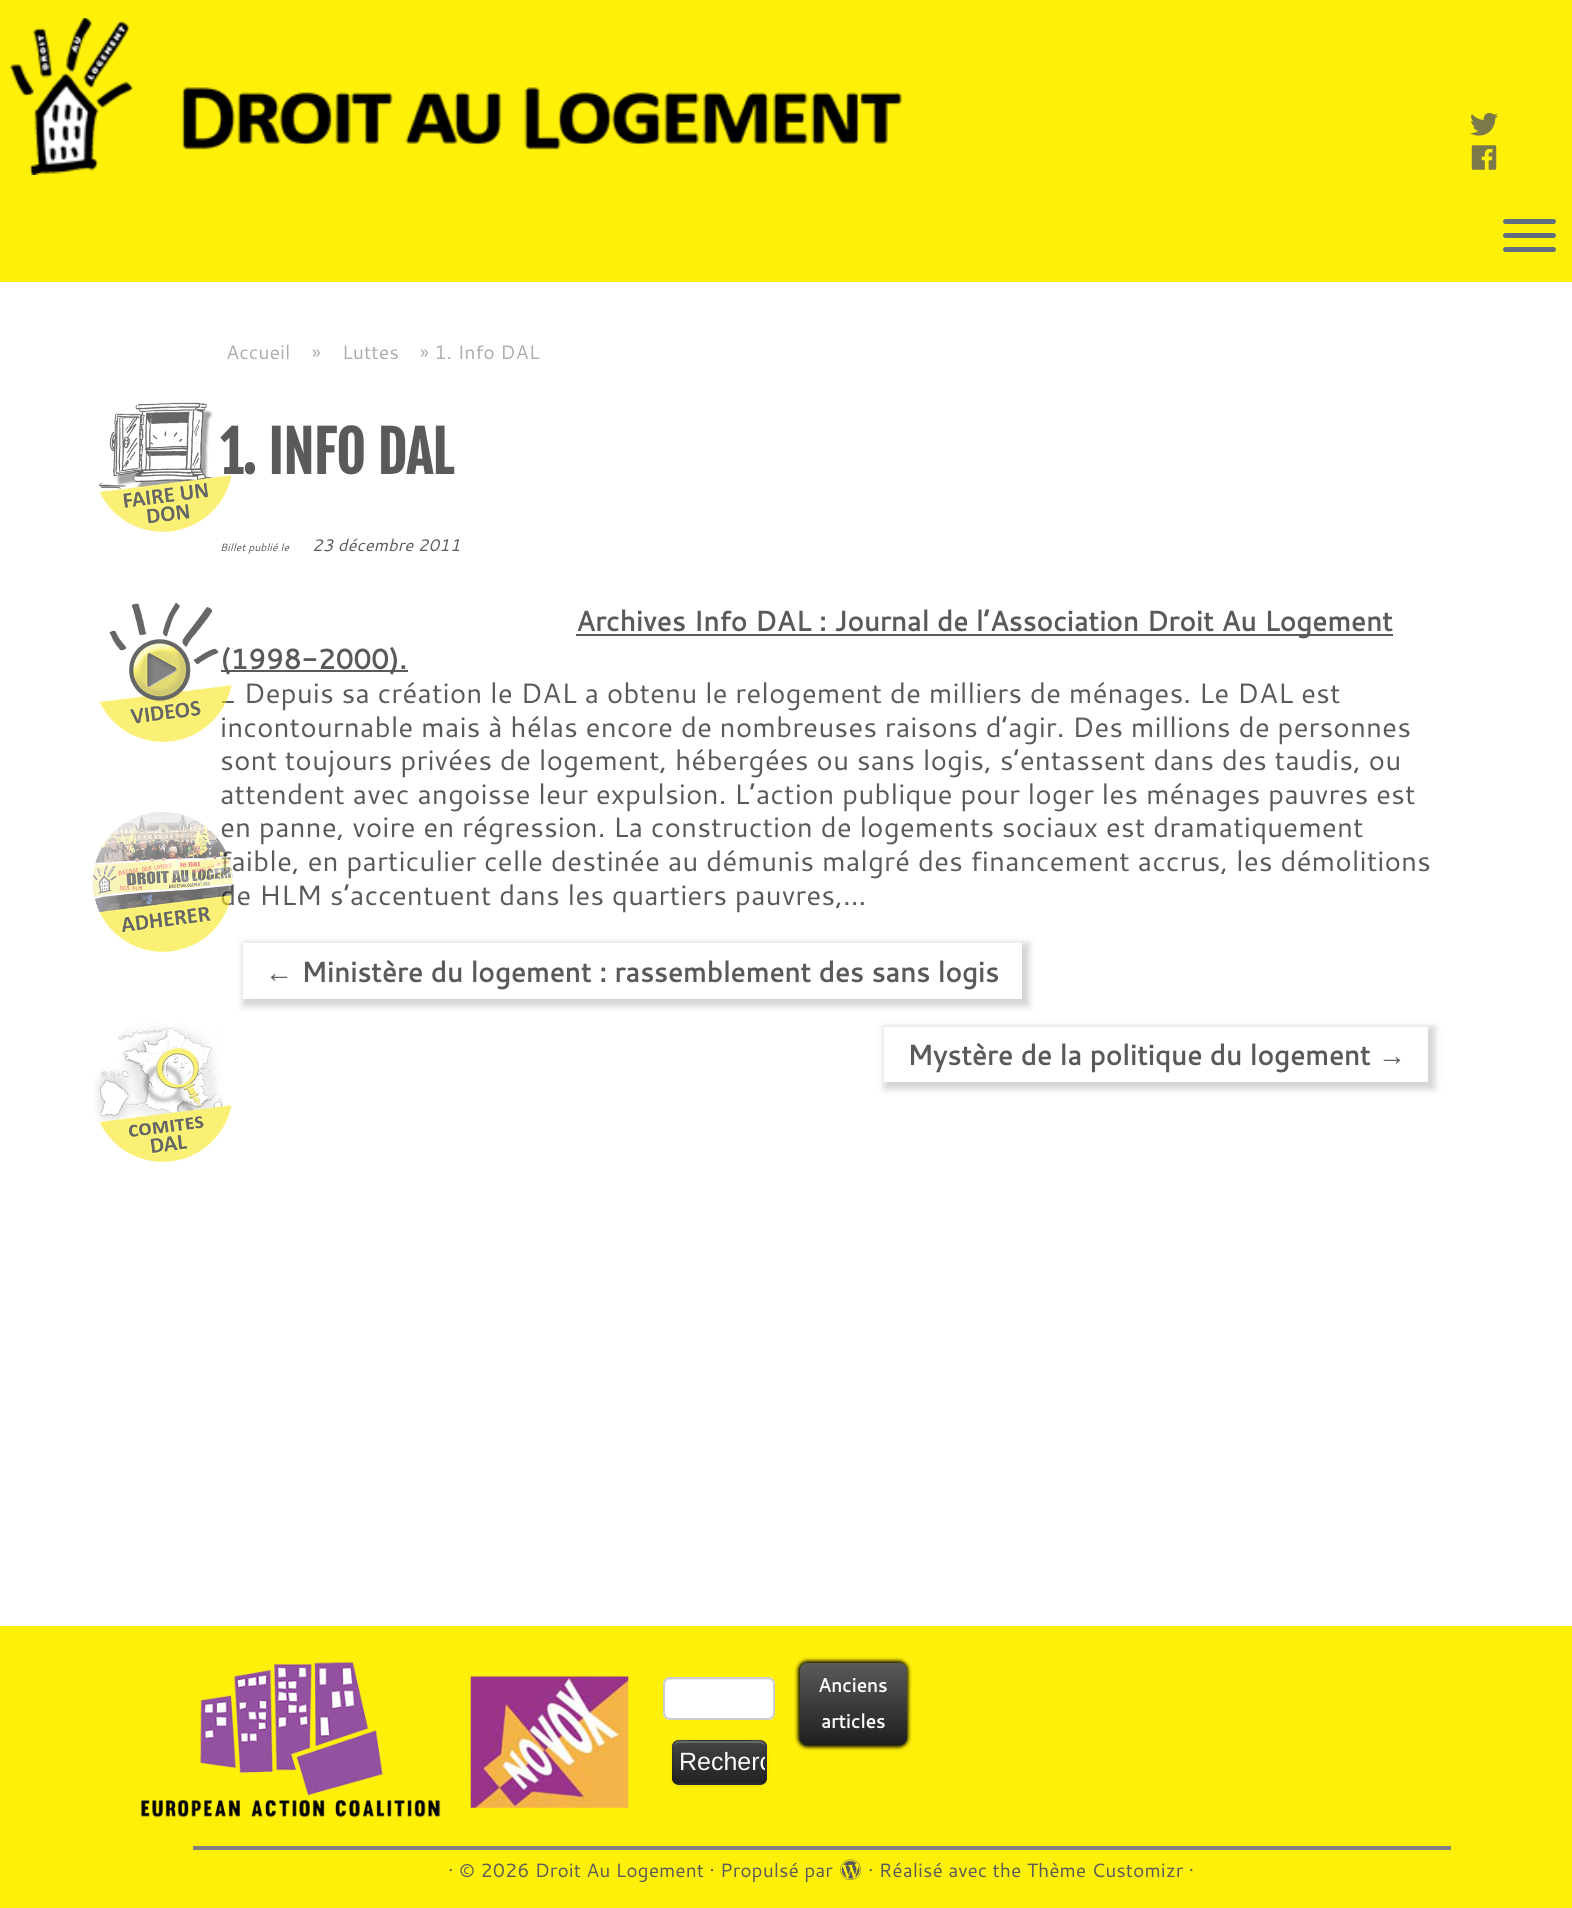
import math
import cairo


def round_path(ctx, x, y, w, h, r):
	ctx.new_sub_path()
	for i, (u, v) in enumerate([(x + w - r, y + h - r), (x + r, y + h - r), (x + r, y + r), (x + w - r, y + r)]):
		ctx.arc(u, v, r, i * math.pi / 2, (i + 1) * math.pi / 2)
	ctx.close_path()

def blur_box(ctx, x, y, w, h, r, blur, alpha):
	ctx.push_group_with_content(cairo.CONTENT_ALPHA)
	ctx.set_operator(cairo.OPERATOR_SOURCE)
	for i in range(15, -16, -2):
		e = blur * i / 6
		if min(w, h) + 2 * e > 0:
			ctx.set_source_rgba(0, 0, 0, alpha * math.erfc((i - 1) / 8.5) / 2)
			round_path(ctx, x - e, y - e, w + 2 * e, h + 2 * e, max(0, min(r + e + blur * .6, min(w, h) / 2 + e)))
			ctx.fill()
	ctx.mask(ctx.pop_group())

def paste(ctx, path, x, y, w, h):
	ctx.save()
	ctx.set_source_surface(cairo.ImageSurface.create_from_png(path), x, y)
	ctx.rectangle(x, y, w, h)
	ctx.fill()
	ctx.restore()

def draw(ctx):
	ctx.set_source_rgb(1, 1, 1)
	ctx.paint()
	ctx.set_source_rgb(1, 0.941, 0.039)
	ctx.rectangle(0, 0, 1572, 282)
	ctx.fill()
	paste(ctx, 'media/1.png', 10, 18, 892, 157)
	paste(ctx, 'media/2.png', 1470, 112, 28, 24)
	paste(ctx, 'media/3.png', 1471, 145, 26, 25)
	ctx.set_source_rgb(0.373, 0.435, 0.506)
	round_path(ctx, 1503, 219, 53, 5, 2.5)
	ctx.fill()
	round_path(ctx, 1503, 233, 53, 5, 2.5)
	ctx.fill()
	round_path(ctx, 1503, 247, 53, 5, 2.5)
	ctx.fill()
	ctx.select_font_face('Cantarell')
	ctx.set_font_size(19.5)
	ctx.set_source_rgb(0.678, 0.678, 0.678)
	for x, y, s in [
		(226, 359, 'Accueil'),
		(312, 359, '»'),
		(342, 359, 'Luttes'),
		(420, 359, '» 1. Info DAL'),
	]:
		ctx.move_to(x, y)
		ctx.show_text(s)
	ctx.select_font_face('Fjalla One', cairo.FONT_SLANT_NORMAL, cairo.FONT_WEIGHT_BOLD)
	ctx.set_font_size(56)
	ctx.set_source_rgb(0.353, 0.353, 0.353)
	ctx.move_to(220, 474)
	ctx.show_text('1. INFO DAL')
	paste(ctx, 'media/4.png', 98, 402, 134, 130)
	ctx.rectangle(221, 670, 187, 2)
	ctx.fill()
	ctx.select_font_face('Cantarell', cairo.FONT_SLANT_NORMAL, cairo.FONT_WEIGHT_BOLD)
	ctx.set_font_size(28)
	ctx.move_to(220, 669)
	ctx.show_text('(1998-2000).')
	ctx.select_font_face('Cantarell')
	ctx.move_to(220, 703)
	ctx.show_text('_ Depuis sa création le DAL a obtenu le relogement de milliers de ménages. Le DAL est')
	ctx.move_to(220, 737)
	ctx.show_text('incontournable mais à hélas encore de nombreuses raisons d’agir. Des millions de personnes')
	paste(ctx, 'media/5.png', 99, 602, 133, 140)
	for x, y, s in [
		(220, 837, 'en panne, voire en régression. La construction de logements sociaux est dramatiquement'),
		(220, 871, 'faible, en particulier celle destinée au démunis malgré des financement accrus, les démolitions'),
		(220, 905, 'de HLM s’accentuent dans les quartiers pauvres,…'),
	]:
		ctx.move_to(x, y)
		ctx.show_text(s)
	ctx.set_source_rgb(0.827, 0.827, 0.827)
	blur_box(ctx, 243, 943, 786, 63, 0, 3.5, 1)
	paste(ctx, 'media/6.png', 92, 812, 141, 140)
	paste(ctx, 'media/7.png', 95, 1023, 137, 139)
	ctx.select_font_face('Cantarell', cairo.FONT_SLANT_ITALIC)
	ctx.set_font_size(10.5)
	ctx.set_source_rgb(0.353, 0.353, 0.353)
	ctx.move_to(220, 551)
	ctx.show_text('Billet publié le')
	ctx.set_font_size(16.75)
	ctx.move_to(312, 551)
	ctx.show_text('23 décembre 2011')
	ctx.rectangle(576, 634, 817, 2)
	ctx.fill()
	ctx.select_font_face('Cantarell', cairo.FONT_SLANT_NORMAL, cairo.FONT_WEIGHT_BOLD)
	ctx.set_font_size(28)
	ctx.move_to(576, 631)
	ctx.show_text('Archives Info DAL : Journal de l’Association Droit Au Logement')
	ctx.select_font_face('Cantarell')
	ctx.move_to(220, 770)
	ctx.show_text('sont toujours privées de logement, hébergées ou sans logis, s’entassent dans des taudis, ou')
	ctx.move_to(220, 804)
	ctx.show_text('attendent avec angoisse leur expulsion. L’action publique pour loger les ménages pauvres est')
	ctx.set_source_rgb(1, 1, 1)
	ctx.rectangle(243, 943, 779, 56)
	ctx.fill()
	ctx.select_font_face('Liberation Serif', cairo.FONT_SLANT_NORMAL, cairo.FONT_WEIGHT_BOLD)
	ctx.set_source_rgb(0.353, 0.353, 0.353)
	ctx.move_to(265, 982)
	ctx.show_text('←')
	ctx.select_font_face('Cantarell', cairo.FONT_SLANT_NORMAL, cairo.FONT_WEIGHT_BOLD)
	ctx.move_to(301, 982)
	ctx.show_text('Ministère du logement : rassemblement des sans logis')
	ctx.set_source_rgb(0.827, 0.827, 0.827)
	blur_box(ctx, 884, 1027, 551, 62, 0, 3.5, 1)
	ctx.set_source_rgb(1, 1, 1)
	ctx.rectangle(884, 1027, 544, 55)
	ctx.fill()
	ctx.set_source_rgb(0.353, 0.353, 0.353)
	ctx.move_to(907, 1065)
	ctx.show_text('Mystère de la politique du logement')
	ctx.select_font_face('Liberation Serif', cairo.FONT_SLANT_NORMAL, cairo.FONT_WEIGHT_BOLD)
	ctx.move_to(1378, 1065)
	ctx.show_text('→')
	ctx.set_source_rgb(1, 0.941, 0.039)
	ctx.rectangle(0, 1626, 1572, 282)
	ctx.fill()
	paste(ctx, 'media/8.png', 140, 1662, 301, 156)
	paste(ctx, 'media/9.png', 470, 1676, 159, 132)
	ctx.set_source_rgb(0, 0, 0)
	blur_box(ctx, 798, 1661, 110, 86, 9, 2, 1)
	gradient = cairo.LinearGradient(853, 1663, 853, 1745)
	gradient.add_color_stop_rgba(0, 0.353, 0.353, 0.353, 1)
	gradient.add_color_stop_rgba(1, 0.118, 0.118, 0.118, 1)
	ctx.set_source(gradient)
	round_path(ctx, 800, 1663, 107, 82, 7)
	ctx.fill()
	ctx.select_font_face('Cantarell', cairo.FONT_SLANT_NORMAL, cairo.FONT_WEIGHT_BOLD)
	ctx.set_font_size(19.25)
	ctx.set_source_rgb(0.98, 0.98, 0.98)
	ctx.move_to(818, 1692)
	ctx.show_text('Anciens')
	ctx.move_to(821, 1728)
	ctx.show_text('articles')
	ctx.set_source_rgb(1, 1, 1)
	round_path(ctx, 663, 1677, 112, 43, 7)
	ctx.fill()
	ctx.set_source_rgb(0.925, 0.925, 0.925)
	ctx.new_path()
	ctx.move_to(670, 1680)
	ctx.line_to(768, 1680)
	ctx.curve_to(771, 1680, 774, 1682, 774, 1685)
	ctx.line_to(774, 1683)
	ctx.curve_to(774, 1680, 772, 1678, 769, 1678)
	ctx.line_to(670, 1678)
	ctx.curve_to(667, 1678, 665, 1680, 665, 1683)
	ctx.line_to(665, 1685)
	ctx.curve_to(665, 1682, 667, 1680, 670, 1680)
	ctx.close_path()
	ctx.fill()
	round_path(ctx, 664, 1678, 110, 41, 6)
	ctx.set_source_rgb(0.8, 0.8, 0.8)
	ctx.stroke()
	ctx.set_source_rgb(0, 0, 0)
	blur_box(ctx, 672, 1741, 95, 46, 7, 2, 0.05)
	ctx.set_source_rgb(0.212, 0.212, 0.212)
	round_path(ctx, 672, 1740, 95, 45, 7)
	ctx.fill()
	ctx.save()
	round_path(ctx, 672, 1740, 95, 45, 7)
	ctx.clip()
	gradient = cairo.LinearGradient(719, 1741, 719, 1783)
	gradient.add_color_stop_rgba(0, 0.267, 0.267, 0.267, 1)
	gradient.add_color_stop_rgba(1, 0.133, 0.133, 0.133, 1)
	ctx.set_source(gradient)
	ctx.rectangle(672, 1741, 95, 42)
	ctx.fill()
	ctx.restore()
	ctx.set_source_rgba(1, 1, 1, 0.2)
	ctx.new_path()
	ctx.move_to(679, 1743)
	ctx.line_to(760, 1743)
	ctx.curve_to(762, 1743, 765, 1745, 765, 1748)
	ctx.curve_to(765, 1737, 755, 1741, 746, 1741)
	ctx.line_to(692, 1741)
	ctx.curve_to(684, 1741, 674, 1737, 674, 1748)
	ctx.curve_to(674, 1745, 676, 1743, 679, 1743)
	ctx.close_path()
	ctx.fill()
	ctx.new_path()
	ctx.move_to(764, 1782.5)
	ctx.curve_to(762.5, 1783.5, 761, 1784, 759.5, 1784)
	ctx.line_to(679, 1784)
	ctx.curve_to(677.5, 1784, 676, 1783.5, 674.5, 1782.5)
	ctx.set_source_rgba(0, 0, 0, 0.25)
	ctx.set_line_width(1.8)
	ctx.stroke()
	ctx.new_path()
	ctx.move_to(674.5, 1782.5)
	ctx.curve_to(672, 1780, 673, 1776, 673, 1773)
	ctx.line_to(673, 1762)
	ctx.curve_to(673, 1739.5, 669.5, 1740.5, 692.5, 1740.5)
	ctx.line_to(746, 1740.5)
	ctx.curve_to(769, 1740.5, 765.5, 1739.5, 765.5, 1762)
	ctx.line_to(765.5, 1773)
	ctx.curve_to(765.5, 1776, 766.5, 1780, 764, 1782.5)
	ctx.set_source_rgba(0, 0, 0, 0.1)
	ctx.stroke()
	ctx.save()
	round_path(ctx, 674, 1741, 91, 42, 5)
	ctx.clip()
	ctx.select_font_face('Liberation Sans')
	ctx.set_font_size(25)
	ctx.set_source_rgb(0.98, 0.98, 0.98)
	ctx.move_to(679, 1770)
	ctx.show_text('Recherc')
	ctx.restore()
	ctx.set_source_rgb(0.502, 0.502, 0.502)
	ctx.rectangle(193, 1846, 1258, 4)
	ctx.fill()
	ctx.select_font_face('Cantarell')
	ctx.set_source_rgb(0.353, 0.353, 0.353)
	ctx.move_to(448, 1877)
	ctx.show_text('· © 2026 Droit Au Logement · Propulsé par')
	paste(ctx, 'media/10.png', 840, 1859, 21, 22)
	ctx.move_to(868, 1877)
	ctx.show_text('· Réalisé avec the Thème Customizr ·')


surface = cairo.ImageSurface(cairo.FORMAT_RGB24, 1572, 1908)
ctx = cairo.Context(surface)
options = cairo.FontOptions()
options.set_hint_metrics(cairo.HINT_METRICS_OFF)
options.set_hint_style(cairo.HINT_STYLE_NONE)
ctx.set_font_options(options)
ctx.set_miter_limit(4)
draw(ctx)
surface.write_to_png('image.png')
